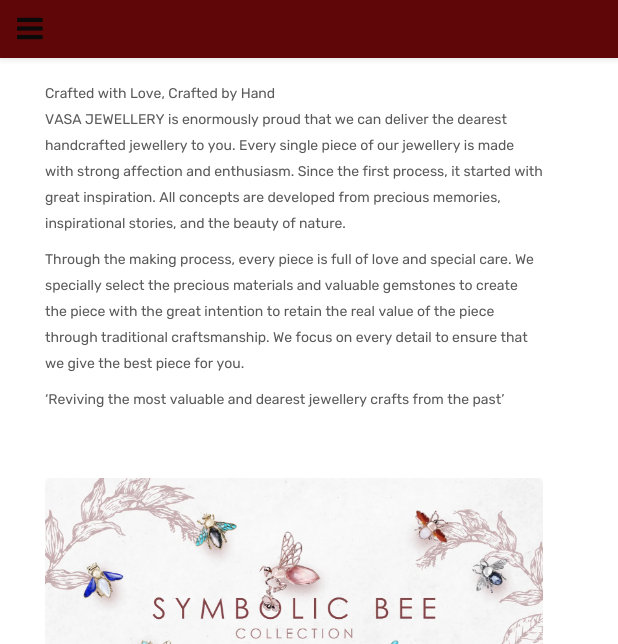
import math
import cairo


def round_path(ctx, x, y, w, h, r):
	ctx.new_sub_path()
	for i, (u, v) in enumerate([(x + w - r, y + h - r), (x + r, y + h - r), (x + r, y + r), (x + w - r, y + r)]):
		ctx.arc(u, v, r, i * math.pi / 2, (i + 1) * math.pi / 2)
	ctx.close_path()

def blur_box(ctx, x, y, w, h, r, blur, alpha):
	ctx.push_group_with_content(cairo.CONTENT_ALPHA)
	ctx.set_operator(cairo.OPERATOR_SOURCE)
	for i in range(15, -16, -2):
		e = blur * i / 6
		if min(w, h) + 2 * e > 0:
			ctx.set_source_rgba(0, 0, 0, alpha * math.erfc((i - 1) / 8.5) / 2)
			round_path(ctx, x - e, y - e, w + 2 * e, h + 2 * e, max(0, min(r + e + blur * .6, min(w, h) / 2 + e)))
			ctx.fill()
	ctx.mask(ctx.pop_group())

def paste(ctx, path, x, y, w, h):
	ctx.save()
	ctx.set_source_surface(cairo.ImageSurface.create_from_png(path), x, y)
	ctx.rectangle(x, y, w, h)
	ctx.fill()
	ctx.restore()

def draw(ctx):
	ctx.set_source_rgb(1, 1, 1)
	ctx.paint()
	ctx.set_source_rgb(0, 0, 0)
	blur_box(ctx, 0, 0, 618, 58, 0, 4, 0.15)
	ctx.set_source_rgb(0.373, 0.024, 0.035)
	ctx.rectangle(0, 0, 618, 58)
	ctx.fill()
	paste(ctx, 'media/1.png', 17, 17, 26, 23)
	ctx.select_font_face('Rubik')
	ctx.set_font_size(14)
	ctx.set_source_rgb(0.353, 0.353, 0.353)
	for x, y, s in [
		(45, 98, 'Crafted with Love, Crafted by Hand'),
		(45, 124, 'VASA JEWELLERY is enormously proud that we can deliver the dearest'),
		(45, 150, 'handcrafted jewellery to you. Every single piece of our jewellery is made'),
		(45, 176, 'with strong affection and enthusiasm. Since the first process, it started with'),
		(45, 202, 'great inspiration. All concepts are developed from precious memories,'),
		(45, 228, 'inspirational stories, and the beauty of nature.'),
		(45, 264, 'Through the making process, every piece is full of love and special care. We'),
		(45, 290, 'specially select the precious materials and valuable gemstones to create'),
		(45, 316, 'the piece with the great intention to retain the real value of the piece'),
		(45, 342, 'through traditional craftsmanship. We focus on every detail to ensure that'),
		(45, 368, 'we give the best piece for you.'),
		(45, 404, '‘Reviving the most valuable and dearest jewellery crafts from the past’'),
	]:
		ctx.move_to(x, y)
		ctx.show_text(s)
	paste(ctx, 'media/2.png', 45, 478, 498, 166)


surface = cairo.ImageSurface(cairo.FORMAT_RGB24, 618, 644)
ctx = cairo.Context(surface)
options = cairo.FontOptions()
options.set_hint_metrics(cairo.HINT_METRICS_OFF)
options.set_hint_style(cairo.HINT_STYLE_NONE)
ctx.set_font_options(options)
ctx.set_miter_limit(4)
draw(ctx)
surface.write_to_png('image.png')
